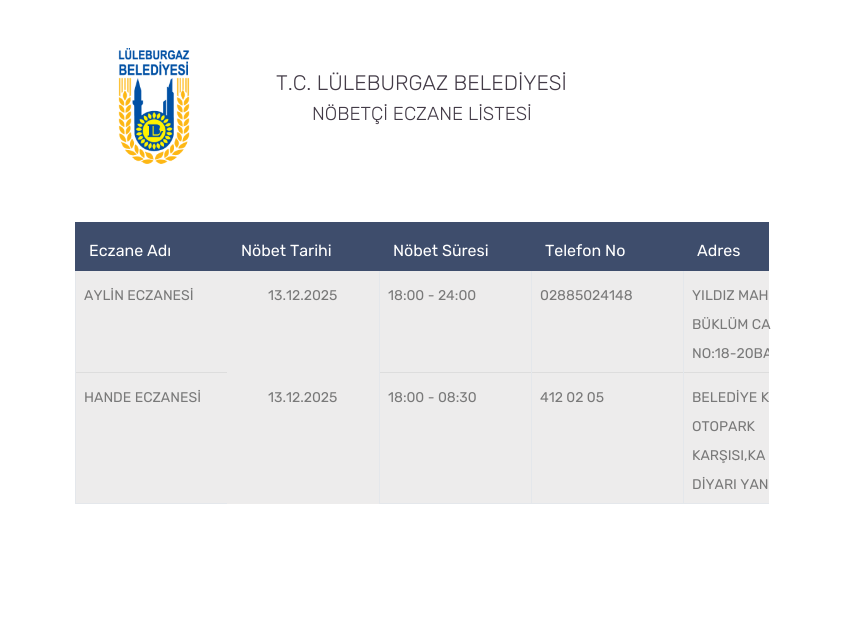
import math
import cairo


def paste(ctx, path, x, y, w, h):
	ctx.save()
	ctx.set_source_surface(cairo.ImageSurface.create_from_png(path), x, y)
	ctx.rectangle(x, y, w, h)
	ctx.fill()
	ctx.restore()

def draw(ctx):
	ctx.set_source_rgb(1, 1, 1)
	ctx.paint()
	paste(ctx, 'media/1.png', 118, 48, 72, 116)
	ctx.select_font_face('Rubik Light')
	ctx.set_font_size(21)
	ctx.set_source_rgb(0.263, 0.231, 0.278)
	ctx.move_to(276, 90)
	ctx.show_text('T.C. LÜLEBURGAZ BELEDİYESİ')
	ctx.set_font_size(18.75)
	ctx.move_to(312, 120)
	ctx.show_text('NÖBETÇİ ECZANE LİSTESİ')
	ctx.set_source_rgb(0.867, 0.867, 0.867)
	ctx.rectangle(683, 372, 86, 1)
	ctx.fill()
	ctx.set_source_rgb(0.894, 0.906, 0.918)
	ctx.rectangle(683, 503, 86, 1)
	ctx.rectangle(683, 372, 1, 132)
	ctx.fill()
	ctx.set_source_rgb(0.867, 0.867, 0.867)
	ctx.rectangle(531, 372, 153, 1)
	ctx.fill()
	ctx.set_source_rgb(0.894, 0.906, 0.918)
	ctx.rectangle(531, 503, 153, 1)
	ctx.rectangle(531, 372, 1, 132)
	ctx.fill()
	ctx.set_source_rgb(0.867, 0.867, 0.867)
	ctx.rectangle(379, 372, 153, 1)
	ctx.fill()
	ctx.set_source_rgb(0.894, 0.906, 0.918)
	ctx.rectangle(531, 270, 1, 103)
	ctx.rectangle(683, 270, 1, 103)
	ctx.fill()
	ctx.set_source_rgb(0.867, 0.867, 0.867)
	ctx.rectangle(75, 372, 153, 1)
	ctx.fill()
	ctx.set_source_rgb(0.894, 0.906, 0.918)
	ctx.rectangle(75, 503, 153, 1)
	ctx.rectangle(75, 270, 1, 234)
	ctx.rectangle(379, 503, 153, 1)
	ctx.rectangle(379, 270, 1, 234)
	ctx.fill()
	ctx.set_source_rgb(0.243, 0.302, 0.424)
	ctx.rectangle(75, 222, 694, 49)
	ctx.fill()
	ctx.select_font_face('Rubik')
	ctx.set_font_size(16)
	ctx.set_source_rgb(1, 1, 1)
	for x, y, s in [
		(89, 256, 'Eczane Adı'),
		(241, 256, 'Nöbet Tarihi'),
		(393, 256, 'Nöbet Süresi'),
		(545, 256, 'Telefon No'),
		(697, 256, 'Adres'),
	]:
		ctx.move_to(x, y)
		ctx.show_text(s)
	ctx.set_source_rgb(0.929, 0.925, 0.925)
	ctx.rectangle(76, 271, 151, 101)
	ctx.fill()
	ctx.set_font_size(14)
	ctx.set_source_rgb(0.475, 0.475, 0.475)
	ctx.move_to(84, 300)
	ctx.show_text('AYLİN ECZANESİ')
	ctx.set_source_rgb(0.929, 0.925, 0.925)
	ctx.rectangle(227, 271, 152, 233)
	ctx.fill()
	ctx.set_source_rgb(0.475, 0.475, 0.475)
	ctx.move_to(268, 300)
	ctx.show_text('13.12.2025')
	ctx.set_source_rgb(0.929, 0.925, 0.925)
	ctx.rectangle(380, 271, 151, 101)
	ctx.fill()
	ctx.set_source_rgb(0.475, 0.475, 0.475)
	ctx.move_to(388, 300)
	ctx.show_text('18:00 - 24:00')
	ctx.set_source_rgb(0.929, 0.925, 0.925)
	ctx.rectangle(532, 271, 151, 101)
	ctx.fill()
	ctx.set_source_rgb(0.475, 0.475, 0.475)
	ctx.move_to(540, 300)
	ctx.show_text('02885024148')
	ctx.set_source_rgb(0.929, 0.925, 0.925)
	ctx.rectangle(684, 271, 85, 101)
	ctx.fill()
	ctx.set_source_rgb(0.475, 0.475, 0.475)
	ctx.move_to(692, 300)
	ctx.show_text('YILDIZ MAH')
	ctx.move_to(692, 329)
	ctx.show_text('BÜKLÜM CA')
	ctx.save()
	ctx.rectangle(75, 222, 694, 292)
	ctx.clip()
	ctx.move_to(692, 358)
	ctx.show_text('NO:18-20BA')
	ctx.restore()
	ctx.set_source_rgb(0.929, 0.925, 0.925)
	ctx.rectangle(76, 373, 151, 130)
	ctx.fill()
	ctx.set_source_rgb(0.475, 0.475, 0.475)
	ctx.move_to(84, 402)
	ctx.show_text('HANDE ECZANESİ')
	ctx.move_to(268, 402)
	ctx.show_text('13.12.2025')
	ctx.set_source_rgb(0.929, 0.925, 0.925)
	ctx.rectangle(380, 373, 151, 130)
	ctx.fill()
	ctx.set_source_rgb(0.475, 0.475, 0.475)
	ctx.move_to(388, 402)
	ctx.show_text('18:00 - 08:30')
	ctx.set_source_rgb(0.929, 0.925, 0.925)
	ctx.rectangle(532, 373, 151, 130)
	ctx.fill()
	ctx.set_source_rgb(0.475, 0.475, 0.475)
	ctx.move_to(540, 402)
	ctx.show_text('412 02 05')
	ctx.set_source_rgb(0.929, 0.925, 0.925)
	ctx.rectangle(684, 373, 85, 130)
	ctx.fill()
	ctx.set_source_rgb(0.475, 0.475, 0.475)
	for x, y, s in [
		(692, 402, 'BELEDİYE K'),
		(692, 431, 'OTOPARK'),
		(692, 460, 'KARŞISI,KA'),
		(692, 489, 'DİYARI YAN'),
	]:
		ctx.move_to(x, y)
		ctx.show_text(s)


surface = cairo.ImageSurface(cairo.FORMAT_RGB24, 843, 639)
ctx = cairo.Context(surface)
options = cairo.FontOptions()
options.set_hint_metrics(cairo.HINT_METRICS_OFF)
options.set_hint_style(cairo.HINT_STYLE_NONE)
ctx.set_font_options(options)
ctx.set_miter_limit(4)
draw(ctx)
surface.write_to_png('image.png')
